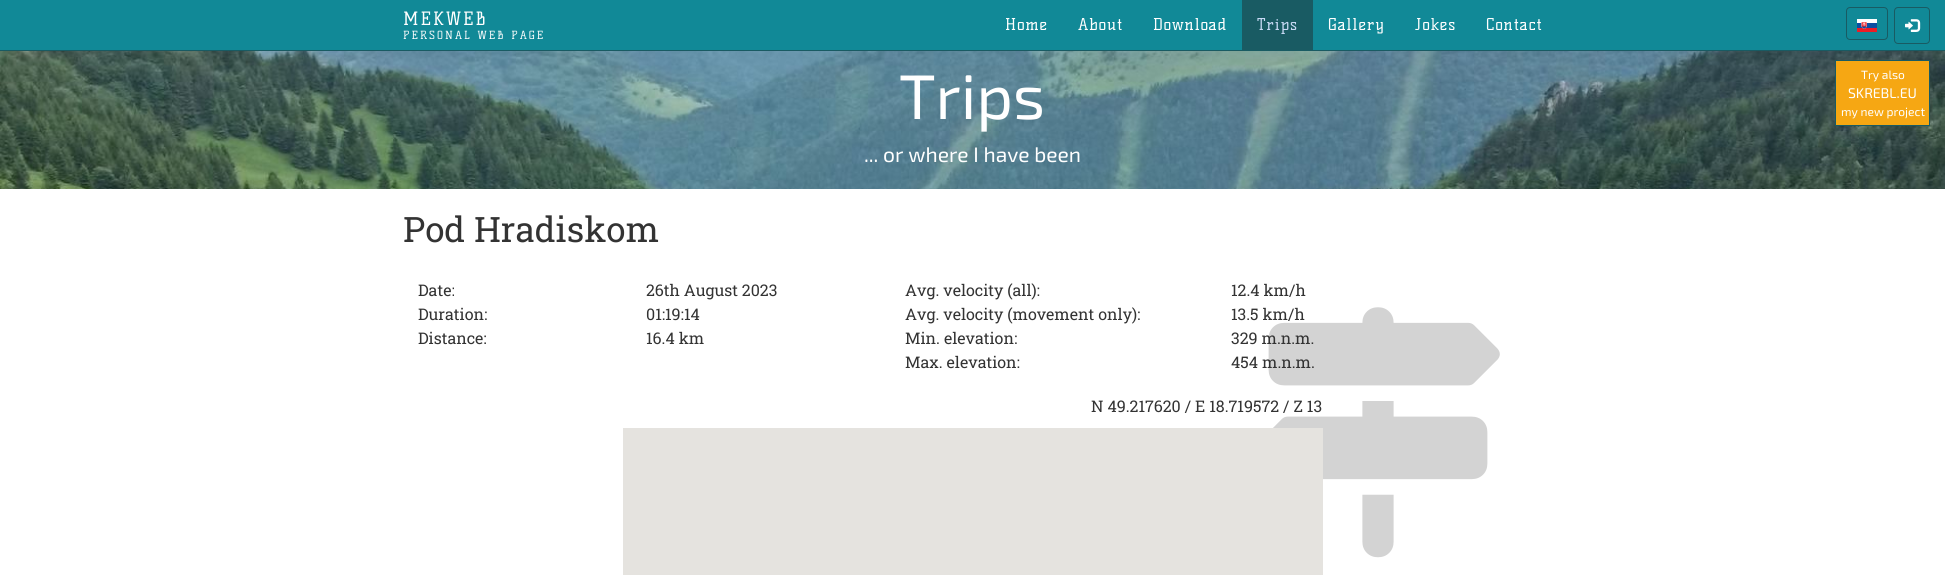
import math
import cairo


def write_spaced(ctx, x, y, s, letter, word):
	ctx.move_to(x, y)
	for ch in s:
		ctx.show_text(ch)
		ctx.rel_move_to(letter + word * (ch == ' '), 0)

def round_path(ctx, x, y, w, h, r):
	ctx.new_sub_path()
	for i, (u, v) in enumerate([(x + w - r, y + h - r), (x + r, y + h - r), (x + r, y + r), (x + w - r, y + r)]):
		ctx.arc(u, v, r, i * math.pi / 2, (i + 1) * math.pi / 2)
	ctx.close_path()

def paste(ctx, path, x, y, w, h):
	ctx.save()
	ctx.set_source_surface(cairo.ImageSurface.create_from_png(path), x, y)
	ctx.rectangle(x, y, w, h)
	ctx.fill()
	ctx.restore()

def draw(ctx):
	ctx.set_source_rgb(1, 1, 1)
	ctx.paint()
	ctx.set_source_rgb(0.067, 0.537, 0.592)
	ctx.rectangle(0, 0, 1945, 50)
	ctx.fill()
	ctx.set_source_rgb(0.098, 0.357, 0.388)
	ctx.rectangle(0, 50, 1945, 1)
	ctx.fill()
	ctx.select_font_face('Kelly Slab')
	ctx.set_font_size(18)
	ctx.set_source_rgb(1, 1, 1)
	write_spaced(ctx, 403, 25, 'MEKWEB', 2, 0)
	ctx.set_font_size(11)
	write_spaced(ctx, 403, 39, 'PERSONAL WEB PAGE', 2, 0)
	ctx.set_font_size(16)
	for x, y, s in [
		(1005, 30, 'Home'),
		(1078, 30, 'About'),
		(1153, 30, 'Download'),
	]:
		write_spaced(ctx, x, y, s, 1, 0)
	ctx.set_source_rgb(0.098, 0.357, 0.388)
	ctx.rectangle(1242, 0, 71, 50)
	ctx.fill()
	ctx.set_source_rgb(0.78, 0.851, 0.957)
	write_spaced(ctx, 1257, 30, 'Trips', 1, 0)
	ctx.set_source_rgb(1, 1, 1)
	for x, y, s in [
		(1328, 30, 'Gallery'),
		(1415, 30, 'Jokes'),
		(1486, 30, 'Contact'),
	]:
		write_spaced(ctx, x, y, s, 1, 0)
	round_path(ctx, 1846.5, 7.5, 41, 32, 3.5)
	ctx.set_source_rgb(0.098, 0.357, 0.388)
	ctx.set_line_width(1)
	ctx.stroke()
	paste(ctx, 'media/1.png', 1857, 19, 20, 13)
	round_path(ctx, 1894.5, 7.5, 35, 36, 3.5)
	ctx.stroke()
	paste(ctx, 'media/2.png', 1905, 19, 16, 13)
	paste(ctx, 'media/3.png', 0, 51, 1945, 138)
	ctx.select_font_face('Exo 2')
	ctx.set_font_size(63)
	ctx.set_source_rgb(1, 1, 1)
	ctx.move_to(899, 119)
	ctx.show_text('Trips')
	ctx.set_font_size(21)
	ctx.move_to(864, 162)
	ctx.show_text('... or where I have been')
	ctx.set_source_rgb(0.961, 0.655, 0.075)
	ctx.rectangle(1835.5, 60.5, 94, 65)
	ctx.fill_preserve()
	ctx.set_source_rgb(0.098, 0.357, 0.388)
	ctx.stroke()
	ctx.set_font_size(12)
	ctx.set_source_rgb(1, 1, 1)
	ctx.move_to(1861, 79)
	ctx.show_text('Try also')
	ctx.set_font_size(14)
	ctx.move_to(1848, 98)
	ctx.show_text('SKREBL.EU')
	ctx.set_font_size(12)
	ctx.move_to(1841, 116)
	ctx.show_text('my new project')
	ctx.select_font_face('Roboto Slab')
	ctx.set_font_size(35)
	ctx.set_source_rgb(0.2, 0.2, 0.2)
	ctx.move_to(403, 242)
	ctx.show_text('Pod Hradiskom')
	ctx.set_font_size(16)
	for x, y, s in [
		(418, 296, 'Date:'),
		(646, 296, '26th August 2023'),
		(418, 320, 'Duration:'),
		(646, 320, '01:19:14'),
		(418, 344, 'Distance:'),
		(646, 344, '16.4 km'),
		(905, 296, 'Avg. velocity (all):'),
		(1231, 296, '12.4 km/h'),
		(905, 320, 'Avg. velocity (movement only):'),
	]:
		ctx.move_to(x, y)
		ctx.show_text(s)
	paste(ctx, 'media/4.png', 1268, 307, 232, 251)
	for x, y, s in [
		(1231, 320, '13.5 km/h'),
		(905, 344, 'Min. elevation:'),
		(1231, 344, '329 m.n.m.'),
		(905, 368, 'Max. elevation:'),
		(1231, 368, '454 m.n.m.'),
		(1091, 412, 'N 49.217620 / E 18.719572 / Z 13'),
	]:
		ctx.move_to(x, y)
		ctx.show_text(s)
	ctx.set_source_rgb(0.898, 0.89, 0.875)
	ctx.rectangle(623, 428, 700, 147)
	ctx.fill()


surface = cairo.ImageSurface(cairo.FORMAT_RGB24, 1945, 575)
ctx = cairo.Context(surface)
options = cairo.FontOptions()
options.set_hint_metrics(cairo.HINT_METRICS_OFF)
options.set_hint_style(cairo.HINT_STYLE_NONE)
ctx.set_font_options(options)
ctx.set_miter_limit(4)
draw(ctx)
surface.write_to_png('image.png')
